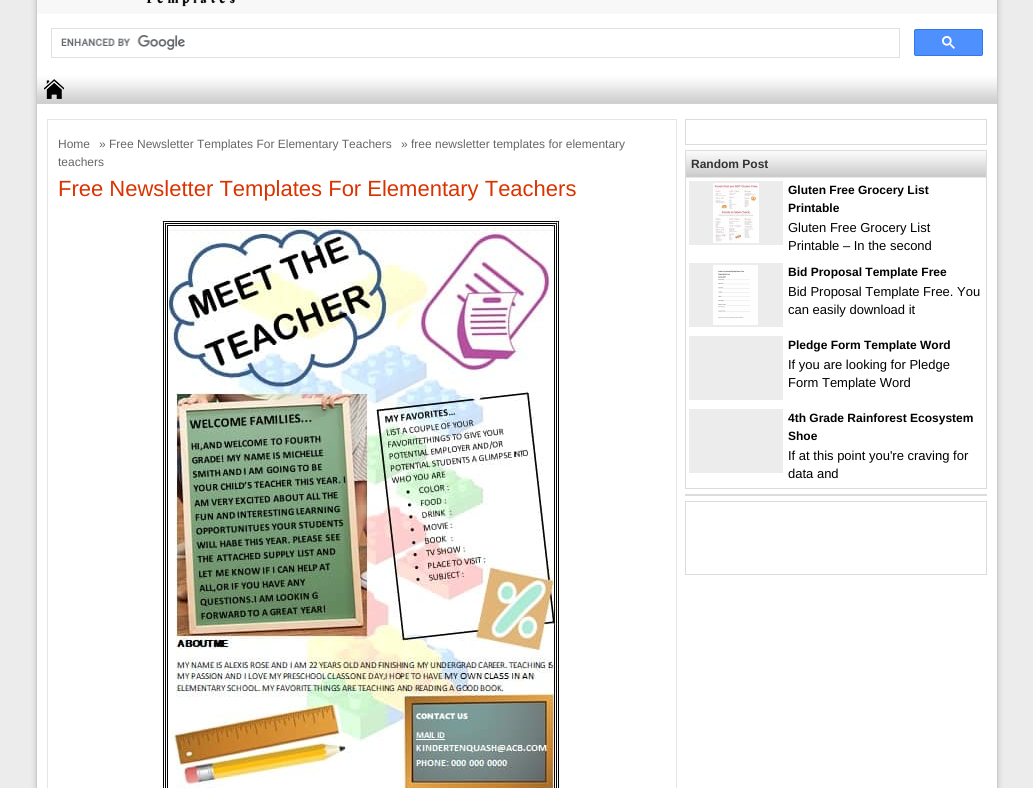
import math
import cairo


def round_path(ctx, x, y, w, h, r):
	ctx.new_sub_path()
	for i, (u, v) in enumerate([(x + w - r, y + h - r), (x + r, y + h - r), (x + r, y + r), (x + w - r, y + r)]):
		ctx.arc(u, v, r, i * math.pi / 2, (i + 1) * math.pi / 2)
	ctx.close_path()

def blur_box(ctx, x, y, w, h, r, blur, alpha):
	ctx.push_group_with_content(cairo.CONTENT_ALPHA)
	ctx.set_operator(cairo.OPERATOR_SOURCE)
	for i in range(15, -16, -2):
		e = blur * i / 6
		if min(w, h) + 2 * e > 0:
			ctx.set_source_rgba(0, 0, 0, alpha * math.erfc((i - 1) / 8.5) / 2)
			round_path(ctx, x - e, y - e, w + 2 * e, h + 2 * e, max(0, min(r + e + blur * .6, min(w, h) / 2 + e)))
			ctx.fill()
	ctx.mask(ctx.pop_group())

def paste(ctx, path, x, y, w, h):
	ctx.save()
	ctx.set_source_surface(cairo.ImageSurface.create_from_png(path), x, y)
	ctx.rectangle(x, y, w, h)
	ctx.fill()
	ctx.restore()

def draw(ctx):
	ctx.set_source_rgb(0.922, 0.922, 0.922)
	ctx.paint()
	ctx.set_source_rgb(0.392, 0.392, 0.392)
	blur_box(ctx, 36, -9, 962, 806, 0, 3, 0.3)
	ctx.set_source_rgb(1, 1, 1)
	ctx.rectangle(37, 14, 960, 774)
	ctx.fill()
	ctx.rectangle(36.5, -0.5, 961, 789)
	ctx.set_source_rgb(0.8, 0.8, 0.8)
	ctx.set_line_width(1)
	ctx.stroke()
	ctx.set_source_rgb(0.969, 0.969, 0.969)
	ctx.rectangle(37, 0, 960, 14)
	ctx.fill()
	paste(ctx, 'media/1.png', 146, 0, 89, 7)
	ctx.rectangle(51.5, 28.5, 848, 29)
	ctx.set_source_rgb(0.875, 0.882, 0.898)
	ctx.stroke()
	paste(ctx, 'media/2.png', 61, 35, 124, 15)
	ctx.set_source_rgb(0.302, 0.565, 0.996)
	round_path(ctx, 914.5, 29.5, 68, 26, 1.5)
	ctx.fill_preserve()
	ctx.set_source_rgb(0.188, 0.475, 0.929)
	ctx.stroke()
	paste(ctx, 'media/3.png', 942, 36, 13, 13)
	paste(ctx, 'media/4.png', 37, 76, 960, 28)
	paste(ctx, 'media/5.png', 44, 79, 20, 20)
	ctx.rectangle(47.5, 119.5, 629, 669)
	ctx.set_source_rgb(0.898, 0.898, 0.898)
	ctx.stroke()
	ctx.select_font_face('Liberation Sans')
	ctx.set_font_size(12)
	ctx.set_source_rgb(0.4, 0.4, 0.4)
	for x, y, s in [
		(58, 148, 'Home'),
		(99, 148, '» Free Newsletter Templates For Elementary Teachers'),
		(401, 148, '» free newsletter templates for elementary'),
		(58, 166, 'teachers'),
	]:
		ctx.move_to(x, y)
		ctx.show_text(s)
	ctx.set_font_size(22)
	ctx.set_source_rgb(0.859, 0.2, 0)
	ctx.move_to(58, 196)
	ctx.show_text('Free Newsletter Templates For Elementary Teachers')
	paste(ctx, 'media/6.png', 160, 217, 400, 571)
	ctx.rectangle(685.5, 119.5, 301, 25)
	ctx.set_source_rgb(0.863, 0.863, 0.863)
	ctx.stroke()
	ctx.rectangle(685.5, 150.5, 301, 338)
	ctx.stroke()
	ctx.set_source_rgb(0.8, 0.8, 0.8)
	ctx.rectangle(686, 174, 300, 3)
	ctx.fill()
	paste(ctx, 'media/7.png', 686, 151, 300, 23)
	ctx.set_source_rgb(0.91, 0.91, 0.91)
	ctx.rectangle(686, 177, 300, 1)
	ctx.fill()
	ctx.select_font_face('Liberation Sans', cairo.FONT_SLANT_NORMAL, cairo.FONT_WEIGHT_BOLD)
	ctx.set_font_size(12)
	ctx.set_source_rgb(0.2, 0.2, 0.2)
	ctx.move_to(691, 168)
	ctx.show_text('Random Post')
	ctx.set_source_rgb(0.922, 0.922, 0.922)
	ctx.rectangle(689, 181, 94, 64)
	ctx.fill()
	paste(ctx, 'media/8.png', 713, 183, 46, 60)
	ctx.set_source_rgb(0, 0, 0)
	ctx.move_to(788, 194)
	ctx.show_text('Gluten Free Grocery List')
	ctx.move_to(788, 212)
	ctx.show_text('Printable')
	ctx.select_font_face('Liberation Sans')
	ctx.set_font_size(13)
	ctx.move_to(788, 232)
	ctx.show_text('Gluten Free Grocery List')
	ctx.move_to(788, 250)
	ctx.show_text('Printable – In the second')
	ctx.set_source_rgb(0.922, 0.922, 0.922)
	ctx.rectangle(689, 263, 94, 64)
	ctx.fill()
	paste(ctx, 'media/9.png', 713, 265, 45, 60)
	ctx.select_font_face('Liberation Sans', cairo.FONT_SLANT_NORMAL, cairo.FONT_WEIGHT_BOLD)
	ctx.set_font_size(12)
	ctx.set_source_rgb(0, 0, 0)
	ctx.move_to(788, 276)
	ctx.show_text('Bid Proposal Template Free')
	ctx.select_font_face('Liberation Sans')
	ctx.set_font_size(13)
	ctx.move_to(788, 296)
	ctx.show_text('Bid Proposal Template Free. You')
	ctx.move_to(788, 314)
	ctx.show_text('can easily download it')
	ctx.set_source_rgb(0.922, 0.922, 0.922)
	ctx.rectangle(689, 336, 94, 64)
	ctx.fill()
	ctx.select_font_face('Liberation Sans', cairo.FONT_SLANT_NORMAL, cairo.FONT_WEIGHT_BOLD)
	ctx.set_font_size(12)
	ctx.set_source_rgb(0, 0, 0)
	ctx.move_to(788, 349)
	ctx.show_text('Pledge Form Template Word')
	ctx.select_font_face('Liberation Sans')
	ctx.set_font_size(13)
	ctx.move_to(788, 369)
	ctx.show_text('If you are looking for Pledge')
	ctx.move_to(788, 387)
	ctx.show_text('Form Template Word')
	ctx.set_source_rgb(0.922, 0.922, 0.922)
	ctx.rectangle(689, 409, 94, 64)
	ctx.fill()
	ctx.select_font_face('Liberation Sans', cairo.FONT_SLANT_NORMAL, cairo.FONT_WEIGHT_BOLD)
	ctx.set_font_size(12)
	ctx.set_source_rgb(0, 0, 0)
	ctx.move_to(788, 422)
	ctx.show_text('4th Grade Rainforest Ecosystem')
	ctx.move_to(788, 440)
	ctx.show_text('Shoe')
	ctx.select_font_face('Liberation Sans')
	ctx.set_font_size(13)
	ctx.move_to(788, 460)
	ctx.show_text('If at this point you\'re craving for')
	ctx.move_to(788, 478)
	ctx.show_text('data and')
	ctx.set_source_rgb(0.863, 0.863, 0.863)
	ctx.rectangle(685, 494, 302, 2)
	ctx.fill()
	ctx.rectangle(685.5, 501.5, 301, 73)
	ctx.stroke()


surface = cairo.ImageSurface(cairo.FORMAT_RGB24, 1033, 788)
ctx = cairo.Context(surface)
options = cairo.FontOptions()
options.set_hint_metrics(cairo.HINT_METRICS_OFF)
options.set_hint_style(cairo.HINT_STYLE_NONE)
ctx.set_font_options(options)
ctx.set_miter_limit(4)
draw(ctx)
surface.write_to_png('image.png')
